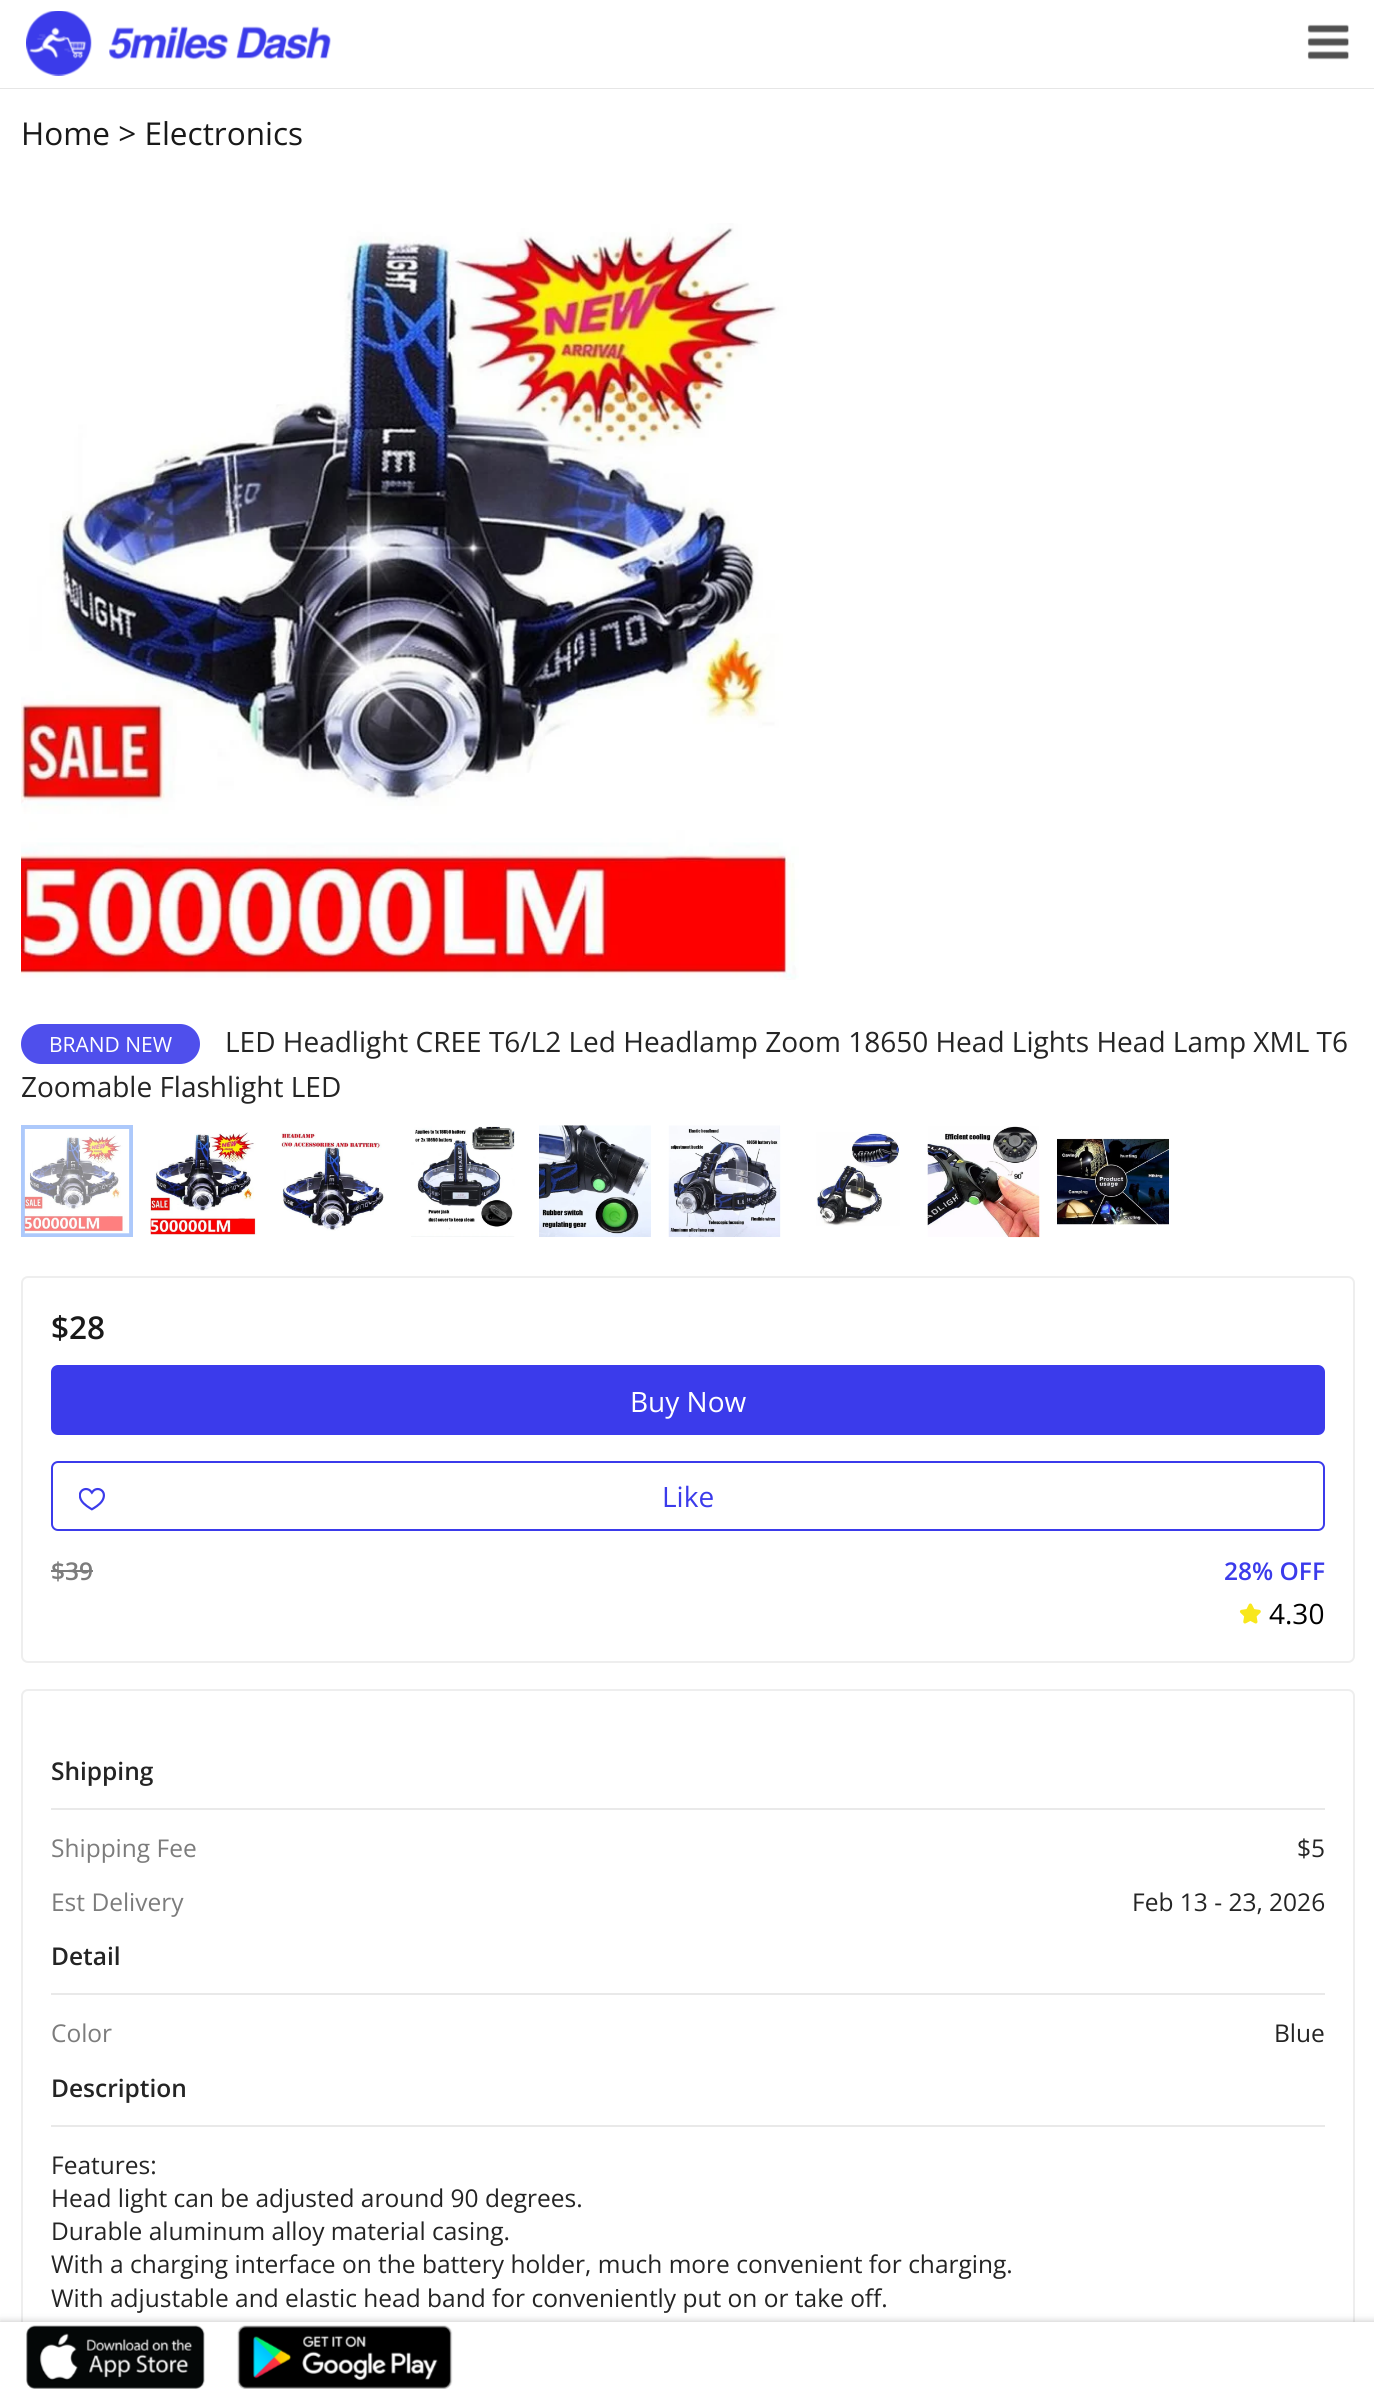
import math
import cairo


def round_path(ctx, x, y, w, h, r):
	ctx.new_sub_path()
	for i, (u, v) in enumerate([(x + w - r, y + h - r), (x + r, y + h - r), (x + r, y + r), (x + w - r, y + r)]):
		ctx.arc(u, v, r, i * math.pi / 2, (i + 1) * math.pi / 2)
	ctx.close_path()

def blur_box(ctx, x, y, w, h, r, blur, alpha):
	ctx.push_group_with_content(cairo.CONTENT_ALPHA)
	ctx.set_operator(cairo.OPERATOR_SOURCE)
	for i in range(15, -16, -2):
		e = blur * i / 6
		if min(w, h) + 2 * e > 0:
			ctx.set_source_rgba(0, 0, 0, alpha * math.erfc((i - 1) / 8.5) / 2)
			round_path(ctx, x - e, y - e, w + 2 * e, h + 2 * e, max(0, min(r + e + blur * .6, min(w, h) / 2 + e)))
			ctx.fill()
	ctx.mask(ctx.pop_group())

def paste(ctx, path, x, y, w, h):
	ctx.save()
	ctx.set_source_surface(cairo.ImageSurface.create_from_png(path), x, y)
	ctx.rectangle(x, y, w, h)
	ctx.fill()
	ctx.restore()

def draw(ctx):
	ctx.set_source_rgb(1, 1, 1)
	ctx.paint()
	ctx.set_source_rgb(0.902, 0.902, 0.902)
	ctx.new_path()
	ctx.move_to(0, 88)
	ctx.line_to(0, 89)
	ctx.line_to(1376, 89)
	ctx.line_to(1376, 2)
	ctx.line_to(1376, 88)
	ctx.close_path()
	ctx.fill()
	paste(ctx, 'media/1.png', 26, 11, 305, 65)
	paste(ctx, 'media/2.png', 1307, 24, 42, 36)
	ctx.select_font_face('Open Sans')
	ctx.set_font_size(31.5)
	ctx.set_source_rgb(0.098, 0.098, 0.098)
	ctx.move_to(21, 145)
	ctx.show_text('Home > Electronics')
	paste(ctx, 'media/3.png', 21, 223, 778, 757)
	ctx.set_source_rgb(0.31, 0.31, 0.925)
	round_path(ctx, 21, 1024, 179, 40, 20)
	ctx.fill()
	ctx.set_font_size(21)
	ctx.set_source_rgb(1, 1, 1)
	ctx.move_to(49, 1052)
	ctx.show_text('BRAND NEW')
	ctx.set_font_size(28)
	ctx.set_source_rgb(0.141, 0.141, 0.141)
	ctx.move_to(225, 1052)
	ctx.show_text('LED Headlight CREE T6/L2 Led Headlamp Zoom 18650 Head Lights Head Lamp XML T6')
	ctx.move_to(21, 1097)
	ctx.show_text('Zoomable Flashlight LED')
	ctx.rectangle(23, 1127, 108, 108)
	ctx.set_source_rgb(0.678, 0.788, 0.984)
	ctx.set_line_width(4)
	ctx.stroke()
	paste(ctx, 'media/4.png', 24, 1129, 106, 105)
	paste(ctx, 'media/5.png', 150, 1132, 107, 103)
	paste(ctx, 'media/6.png', 281, 1132, 103, 99)
	paste(ctx, 'media/7.png', 411, 1126, 104, 111)
	paste(ctx, 'media/8.png', 539, 1125, 112, 112)
	paste(ctx, 'media/9.png', 668, 1125, 113, 112)
	paste(ctx, 'media/10.png', 816, 1132, 84, 94)
	paste(ctx, 'media/11.png', 927, 1126, 113, 112)
	paste(ctx, 'media/12.png', 1057, 1138, 112, 87)
	round_path(ctx, 22, 1277, 1332, 385, 6)
	ctx.set_source_rgb(0.933, 0.933, 0.933)
	ctx.set_line_width(2)
	ctx.stroke()
	ctx.select_font_face('Open Sans SemiBold')
	ctx.set_font_size(31.5)
	ctx.set_source_rgb(0.098, 0.098, 0.098)
	ctx.move_to(51, 1339)
	ctx.show_text('$28')
	ctx.set_source_rgb(0.231, 0.231, 0.918)
	round_path(ctx, 52, 1366, 1272, 68, 6)
	ctx.fill_preserve()
	ctx.stroke()
	ctx.select_font_face('Open Sans')
	ctx.set_font_size(28)
	ctx.set_source_rgb(1, 1, 1)
	ctx.move_to(630, 1412)
	ctx.show_text('Buy Now')
	round_path(ctx, 52, 1462, 1272, 68, 6)
	ctx.set_source_rgb(0.231, 0.231, 0.918)
	ctx.stroke()
	paste(ctx, 'media/13.png', 79, 1487, 26, 24)
	ctx.move_to(662, 1507)
	ctx.show_text('Like')
	ctx.select_font_face('Open Sans SemiBold')
	ctx.set_font_size(24.5)
	ctx.set_source_rgb(0.486, 0.486, 0.486)
	ctx.move_to(51, 1580)
	ctx.show_text('$39')
	ctx.rectangle(51, 1570, 42, 2)
	ctx.fill()
	ctx.set_source_rgb(0.231, 0.231, 0.918)
	ctx.move_to(1224, 1580)
	ctx.show_text('28% OFF')
	paste(ctx, 'media/14.png', 1239, 1603, 22, 21)
	ctx.select_font_face('Open Sans')
	ctx.set_font_size(28)
	ctx.set_source_rgb(0, 0, 0)
	ctx.move_to(1269, 1624)
	ctx.show_text('4.30')
	round_path(ctx, 22, 1690, 1332, 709, 6)
	ctx.set_source_rgb(0.933, 0.933, 0.933)
	ctx.stroke()
	ctx.select_font_face('Open Sans SemiBold')
	ctx.set_font_size(24.5)
	ctx.set_source_rgb(0.141, 0.141, 0.141)
	ctx.move_to(51, 1780)
	ctx.show_text('Shipping')
	ctx.set_source_rgb(0.914, 0.914, 0.914)
	ctx.rectangle(51, 1808, 1274, 2)
	ctx.fill()
	ctx.select_font_face('Open Sans')
	ctx.set_source_rgb(0.486, 0.486, 0.486)
	ctx.move_to(51, 1857)
	ctx.show_text('Shipping Fee')
	ctx.set_source_rgb(0.141, 0.141, 0.141)
	ctx.move_to(1297, 1857)
	ctx.show_text('$5')
	ctx.set_source_rgb(0.486, 0.486, 0.486)
	ctx.move_to(51, 1911)
	ctx.show_text('Est Delivery')
	ctx.set_source_rgb(0.141, 0.141, 0.141)
	ctx.move_to(1132, 1911)
	ctx.show_text('Feb 13 - 23, 2026')
	ctx.select_font_face('Open Sans SemiBold')
	ctx.move_to(51, 1965)
	ctx.show_text('Detail')
	ctx.set_source_rgb(0.914, 0.914, 0.914)
	ctx.rectangle(51, 1993, 1274, 2)
	ctx.fill()
	ctx.select_font_face('Open Sans')
	ctx.set_source_rgb(0.486, 0.486, 0.486)
	ctx.move_to(51, 2042)
	ctx.show_text('Color')
	ctx.set_source_rgb(0.141, 0.141, 0.141)
	ctx.move_to(1274, 2042)
	ctx.show_text('Blue')
	ctx.select_font_face('Open Sans SemiBold')
	ctx.move_to(51, 2097)
	ctx.show_text('Description')
	ctx.set_source_rgb(0.914, 0.914, 0.914)
	ctx.rectangle(51, 2125, 1274, 2)
	ctx.fill()
	ctx.select_font_face('Open Sans')
	ctx.set_source_rgb(0.141, 0.141, 0.141)
	for x, y, s in [
		(51, 2174, 'Features:'),
		(51, 2207, 'Head light can be adjusted around 90 degrees.'),
		(51, 2240, 'Durable aluminum alloy material casing.'),
		(51, 2273, 'With a charging interface on the battery holder, much more convenient for charging.'),
		(51, 2307, 'With adjustable and elastic head band for conveniently put on or take off.'),
	]:
		ctx.move_to(x, y)
		ctx.show_text(s)
	ctx.set_source_rgb(0, 0, 0)
	blur_box(ctx, 0, 2321, 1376, 70, 0, 3.5, 0.2)
	ctx.set_source_rgb(1, 1, 1)
	ctx.rectangle(0, 2322, 1374, 69)
	ctx.fill()
	paste(ctx, 'media/15.png', 26, 2325, 179, 64)
	paste(ctx, 'media/16.png', 237, 2325, 216, 64)


surface = cairo.ImageSurface(cairo.FORMAT_RGB24, 1374, 2391)
ctx = cairo.Context(surface)
options = cairo.FontOptions()
options.set_hint_metrics(cairo.HINT_METRICS_OFF)
options.set_hint_style(cairo.HINT_STYLE_NONE)
ctx.set_font_options(options)
ctx.set_miter_limit(4)
draw(ctx)
surface.write_to_png('image.png')
